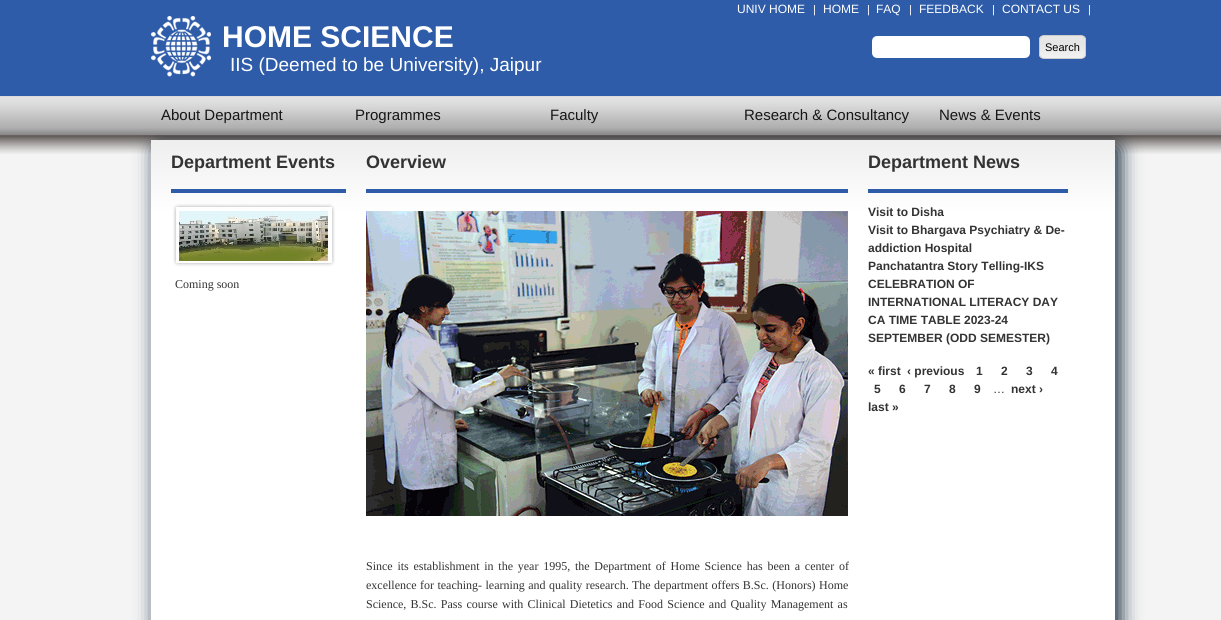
import math
import cairo


def write_spaced(ctx, x, y, s, letter, word):
	ctx.move_to(x, y)
	for ch in s:
		ctx.show_text(ch)
		ctx.rel_move_to(letter + word * (ch == ' '), 0)

def round_path(ctx, x, y, w, h, r):
	ctx.new_sub_path()
	for i, (u, v) in enumerate([(x + w - r, y + h - r), (x + r, y + h - r), (x + r, y + r), (x + w - r, y + r)]):
		ctx.arc(u, v, r, i * math.pi / 2, (i + 1) * math.pi / 2)
	ctx.close_path()

def blur_box(ctx, x, y, w, h, r, blur, alpha):
	ctx.push_group_with_content(cairo.CONTENT_ALPHA)
	ctx.set_operator(cairo.OPERATOR_SOURCE)
	for i in range(15, -16, -2):
		e = blur * i / 6
		if min(w, h) + 2 * e > 0:
			ctx.set_source_rgba(0, 0, 0, alpha * math.erfc((i - 1) / 8.5) / 2)
			round_path(ctx, x - e, y - e, w + 2 * e, h + 2 * e, max(0, min(r + e + blur * .6, min(w, h) / 2 + e)))
			ctx.fill()
	ctx.mask(ctx.pop_group())

def paste(ctx, path, x, y, w, h):
	ctx.save()
	ctx.set_source_surface(cairo.ImageSurface.create_from_png(path), x, y)
	ctx.rectangle(x, y, w, h)
	ctx.fill()
	ctx.restore()

def draw(ctx):
	ctx.set_source_rgb(0.957, 0.957, 0.957)
	ctx.paint()
	ctx.set_source_rgb(0.18, 0.361, 0.663)
	ctx.rectangle(0, 0, 1221, 96)
	ctx.fill()
	ctx.select_font_face('Liberation Sans')
	ctx.set_font_size(12)
	ctx.set_source_rgb(1, 1, 1)
	ctx.move_to(737, 13)
	ctx.show_text('UNIV HOME')
	ctx.set_font_size(11)
	ctx.move_to(813, 13)
	ctx.show_text('|')
	ctx.set_font_size(12)
	ctx.move_to(823, 13)
	ctx.show_text('HOME')
	ctx.set_font_size(11)
	ctx.move_to(867, 13)
	ctx.show_text('|')
	ctx.set_font_size(12)
	ctx.move_to(876, 13)
	ctx.show_text('FAQ')
	ctx.set_font_size(11)
	ctx.move_to(909, 13)
	ctx.show_text('|')
	ctx.set_font_size(12)
	ctx.move_to(919, 13)
	ctx.show_text('FEEDBACK')
	ctx.set_font_size(11)
	ctx.move_to(992, 13)
	ctx.show_text('|')
	ctx.set_font_size(12)
	ctx.move_to(1002, 13)
	ctx.show_text('CONTACT US')
	ctx.set_font_size(11)
	ctx.move_to(1088, 13)
	ctx.show_text('|')
	paste(ctx, 'media/1.png', 151, 16, 60, 61)
	ctx.select_font_face('Liberation Sans', cairo.FONT_SLANT_NORMAL, cairo.FONT_WEIGHT_BOLD)
	ctx.set_font_size(30)
	ctx.move_to(222, 47)
	ctx.show_text('HOME SCIENCE')
	ctx.select_font_face('Liberation Sans')
	ctx.set_font_size(19)
	ctx.move_to(230, 71)
	ctx.show_text('IIS (Deemed to be University), Jaipur')
	round_path(ctx, 874, 38, 154, 18, 3)
	ctx.fill_preserve()
	ctx.set_line_width(4)
	ctx.stroke()
	ctx.save()
	round_path(ctx, 1039, 35, 47, 24, 5)
	ctx.clip()
	gradient = cairo.LinearGradient(1040, 58, 1040, 36)
	gradient.add_color_stop_rgba(0, 0.949, 0.949, 0.949, 1)
	gradient.add_color_stop_rgba(0.6, 0.902, 0.902, 0.902, 1)
	ctx.set_source(gradient)
	ctx.rectangle(1039, 36, 47, 22)
	ctx.fill()
	ctx.restore()
	round_path(ctx, 1039.5, 35.5, 46, 23, 4.5)
	ctx.set_source_rgb(0.8, 0.8, 0.8)
	ctx.set_line_width(1)
	ctx.stroke()
	ctx.set_font_size(11)
	ctx.set_source_rgb(0, 0, 0)
	ctx.move_to(1045, 51)
	ctx.show_text('Search')
	ctx.set_source_rgb(0.02, 0.106, 0.196)
	blur_box(ctx, 156, 145, 964, 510, 5, 10, 1)
	paste(ctx, 'media/2.png', 0, 96, 1221, 58)
	ctx.set_font_size(15)
	ctx.set_source_rgb(0.09, 0.086, 0.086)
	for x, y, s in [
		(161, 120, 'About Department'),
		(355, 120, 'Programmes'),
		(550, 120, 'Faculty'),
		(744, 120, 'Research & Consultancy'),
		(939, 120, 'News & Events'),
	]:
		ctx.move_to(x, y)
		ctx.show_text(s)
	gradient = cairo.LinearGradient(151, 140, 151, 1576)
	gradient.add_color_stop_rgba(0, 0.933, 0.933, 0.933, 1)
	gradient.add_color_stop_rgba(0.05, 1, 1, 1, 1)
	ctx.set_source(gradient)
	ctx.rectangle(151, 140, 964, 480)
	ctx.fill()
	ctx.set_source_rgb(0.18, 0.361, 0.663)
	ctx.rectangle(171, 189, 175, 4)
	ctx.fill()
	ctx.select_font_face('Liberation Sans', cairo.FONT_SLANT_NORMAL, cairo.FONT_WEIGHT_BOLD)
	ctx.set_font_size(18)
	ctx.set_source_rgb(0.2, 0.2, 0.2)
	ctx.move_to(171, 168)
	ctx.show_text('Department Events')
	paste(ctx, 'media/3.png', 173, 203, 162, 64)
	ctx.select_font_face('Liberation Serif')
	ctx.set_font_size(12)
	ctx.move_to(175, 288)
	ctx.show_text('Coming soon')
	ctx.set_source_rgb(0.18, 0.361, 0.663)
	ctx.rectangle(366, 189, 482, 4)
	ctx.fill()
	ctx.select_font_face('Liberation Sans', cairo.FONT_SLANT_NORMAL, cairo.FONT_WEIGHT_BOLD)
	ctx.set_font_size(18)
	ctx.set_source_rgb(0.2, 0.2, 0.2)
	ctx.move_to(366, 168)
	ctx.show_text('Overview')
	paste(ctx, 'media/4.png', 366, 211, 482, 305)
	ctx.select_font_face('Liberation Serif')
	ctx.set_font_size(12)
	write_spaced(ctx, 366, 570, 'Since its establishment in the year 1995, the Department of Home Science has been a center of', 0, 1.75)
	write_spaced(ctx, 366, 589, 'excellence for teaching- learning and quality research. The department offers B.Sc. (Honors) Home', 0, 0.4)
	write_spaced(ctx, 366, 608, 'Science, B.Sc. Pass course with Clinical Dietetics and Food Science and Quality Management as', 0, 1.25)
	ctx.set_source_rgb(0.18, 0.361, 0.663)
	ctx.rectangle(868, 189, 200, 4)
	ctx.fill()
	ctx.select_font_face('Liberation Sans', cairo.FONT_SLANT_NORMAL, cairo.FONT_WEIGHT_BOLD)
	ctx.set_font_size(18)
	ctx.set_source_rgb(0.2, 0.2, 0.2)
	ctx.move_to(868, 168)
	ctx.show_text('Department News')
	ctx.set_font_size(12)
	for x, y, s in [
		(868, 216, 'Visit to Disha'),
		(868, 234, 'Visit to Bhargava Psychiatry & De-'),
		(868, 252, 'addiction Hospital'),
		(868, 270, 'Panchatantra Story Telling-IKS'),
		(868, 288, 'CELEBRATION OF'),
		(868, 306, 'INTERNATIONAL LITERACY DAY'),
		(868, 324, 'CA TIME TABLE 2023-24'),
		(868, 342, 'SEPTEMBER (ODD SEMESTER)'),
		(868, 375, '« first'),
		(907, 375, '‹ previous'),
		(976, 375, '1'),
		(1001, 375, '2'),
		(1026, 375, '3'),
		(1051, 375, '4'),
		(874, 393, '5'),
		(899, 393, '6'),
		(924, 393, '7'),
		(949, 393, '8'),
		(974, 393, '9'),
	]:
		ctx.move_to(x, y)
		ctx.show_text(s)
	ctx.select_font_face('Liberation Sans')
	ctx.move_to(993, 393)
	ctx.show_text('…')
	ctx.select_font_face('Liberation Sans', cairo.FONT_SLANT_NORMAL, cairo.FONT_WEIGHT_BOLD)
	ctx.move_to(1011, 393)
	ctx.show_text('next ›')
	ctx.move_to(868, 411)
	ctx.show_text('last »')


surface = cairo.ImageSurface(cairo.FORMAT_RGB24, 1221, 620)
ctx = cairo.Context(surface)
options = cairo.FontOptions()
options.set_hint_metrics(cairo.HINT_METRICS_OFF)
options.set_hint_style(cairo.HINT_STYLE_NONE)
ctx.set_font_options(options)
ctx.set_miter_limit(4)
draw(ctx)
surface.write_to_png('image.png')
